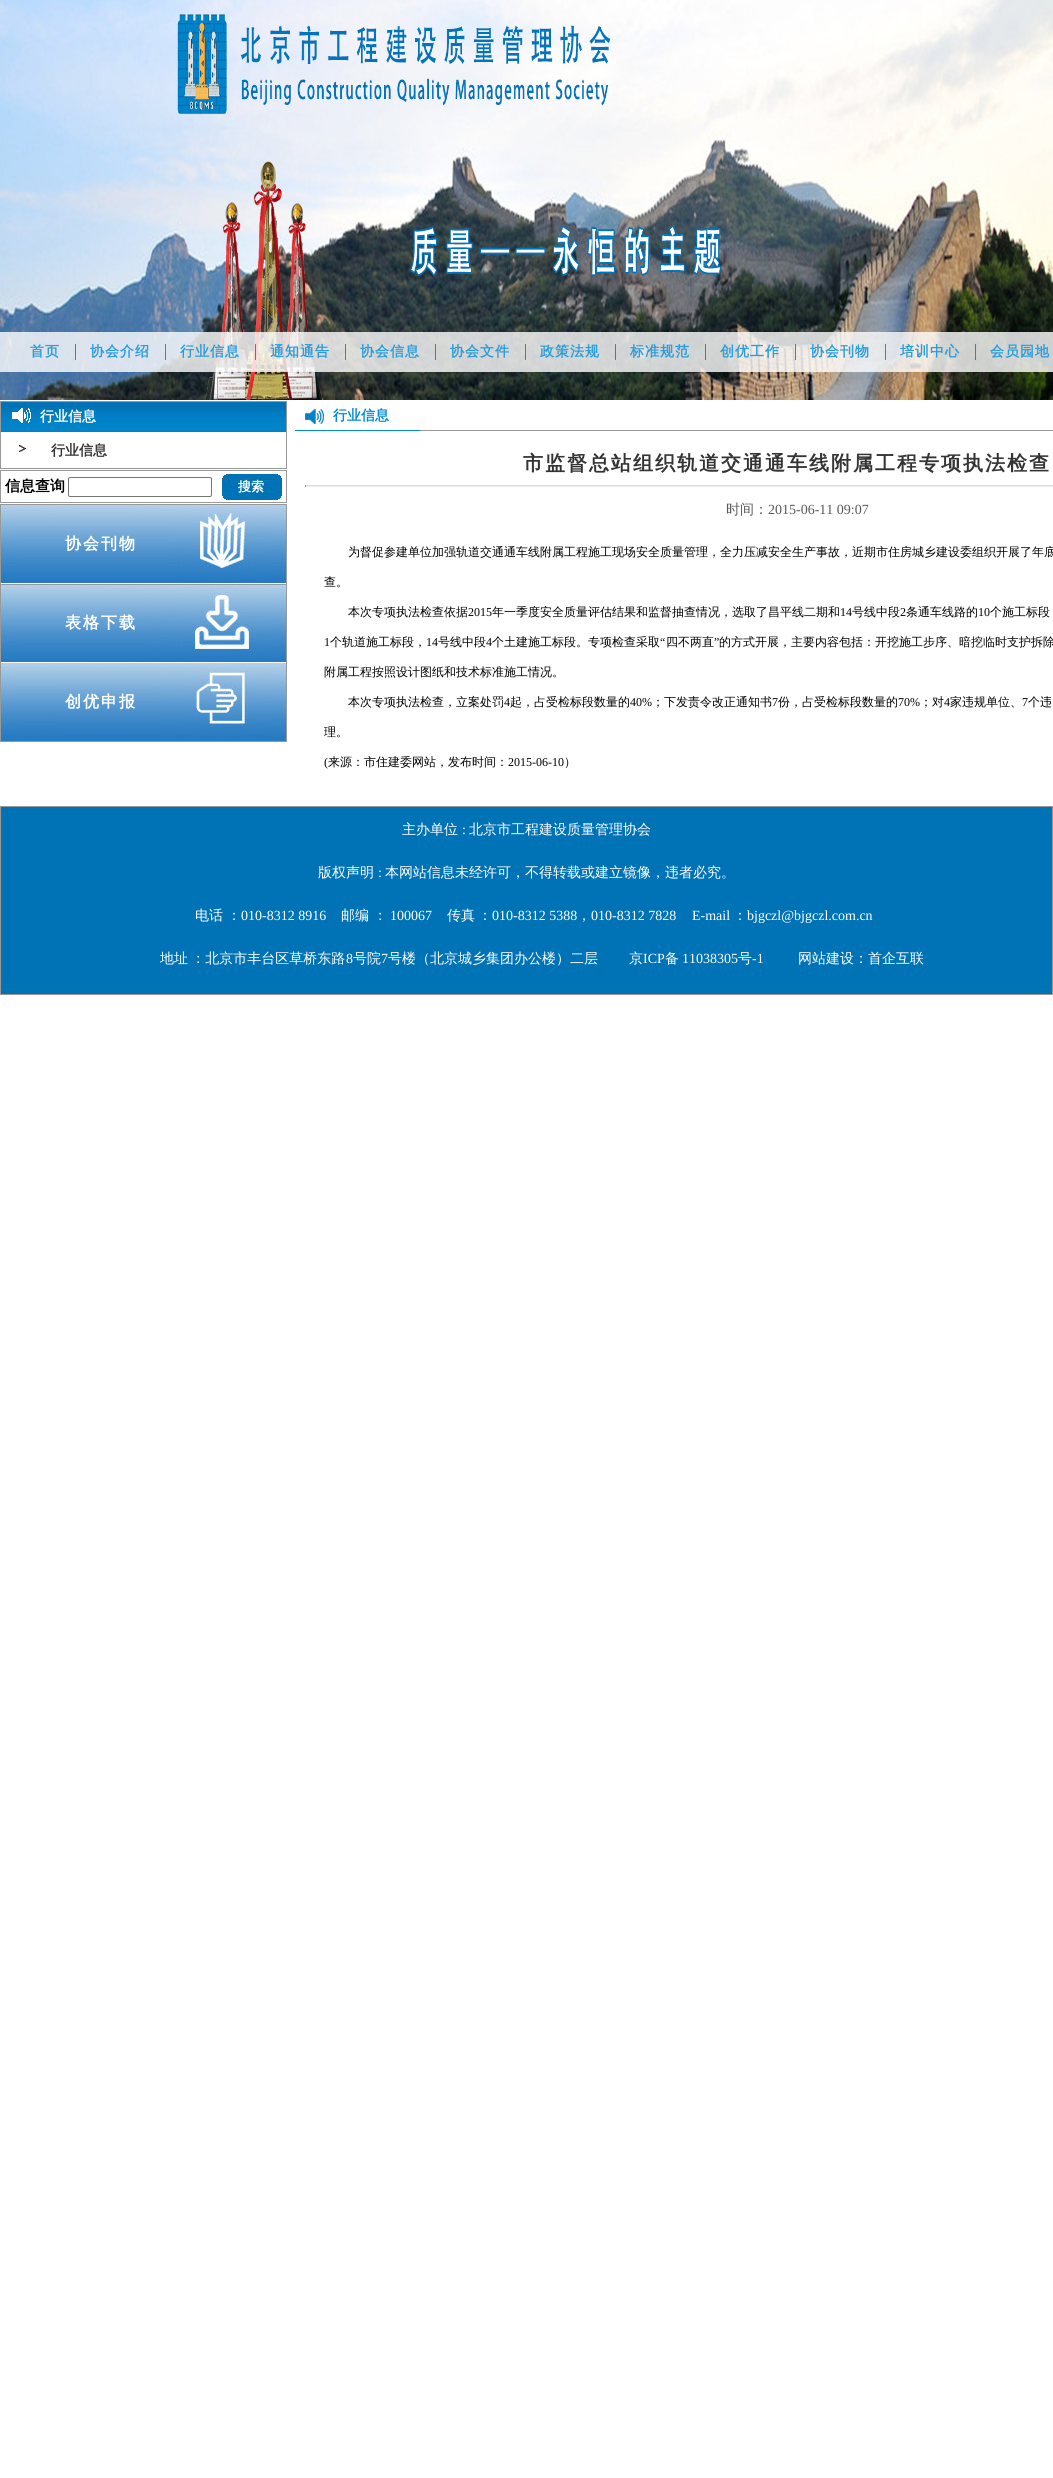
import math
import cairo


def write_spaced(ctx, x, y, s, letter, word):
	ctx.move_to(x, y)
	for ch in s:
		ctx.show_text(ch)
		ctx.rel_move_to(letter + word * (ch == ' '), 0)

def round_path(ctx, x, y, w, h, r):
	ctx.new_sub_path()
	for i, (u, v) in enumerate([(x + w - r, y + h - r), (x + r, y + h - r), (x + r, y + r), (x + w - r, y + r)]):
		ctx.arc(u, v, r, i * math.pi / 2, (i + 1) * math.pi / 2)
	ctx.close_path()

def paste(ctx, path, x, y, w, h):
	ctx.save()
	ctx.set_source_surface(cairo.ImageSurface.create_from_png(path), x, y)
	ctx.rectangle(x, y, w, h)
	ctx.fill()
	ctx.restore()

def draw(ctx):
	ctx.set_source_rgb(1, 1, 1)
	ctx.paint()
	paste(ctx, 'media/1.png', 0, 0, 1053, 400)
	ctx.set_source_rgba(1, 1, 1, 0.8)
	ctx.rectangle(0, 332, 1053, 40)
	ctx.fill()
	ctx.select_font_face('WenQuanYi Zen Hei', cairo.FONT_SLANT_NORMAL, cairo.FONT_WEIGHT_BOLD)
	ctx.set_font_size(14)
	ctx.set_source_rgb(0.173, 0.616, 0.859)
	write_spaced(ctx, 30, 356, '首页', 1, 0)
	paste(ctx, 'media/2.png', 75, 344, 1, 16)
	write_spaced(ctx, 90, 356, '协会介绍', 1, 0)
	paste(ctx, 'media/3.png', 165, 344, 1, 16)
	write_spaced(ctx, 180, 356, '行业信息', 1, 0)
	paste(ctx, 'media/4.png', 255, 344, 1, 16)
	write_spaced(ctx, 270, 356, '通知通告', 1, 0)
	paste(ctx, 'media/5.png', 345, 344, 1, 16)
	write_spaced(ctx, 360, 356, '协会信息', 1, 0)
	paste(ctx, 'media/6.png', 435, 344, 1, 16)
	write_spaced(ctx, 450, 356, '协会文件', 1, 0)
	paste(ctx, 'media/7.png', 525, 344, 1, 16)
	write_spaced(ctx, 540, 356, '政策法规', 1, 0)
	paste(ctx, 'media/8.png', 615, 344, 1, 16)
	write_spaced(ctx, 630, 356, '标准规范', 1, 0)
	paste(ctx, 'media/9.png', 705, 344, 1, 16)
	write_spaced(ctx, 720, 356, '创优工作', 1, 0)
	paste(ctx, 'media/10.png', 795, 344, 1, 16)
	write_spaced(ctx, 810, 356, '协会刊物', 1, 0)
	paste(ctx, 'media/11.png', 885, 344, 1, 16)
	write_spaced(ctx, 900, 356, '培训中心', 1, 0)
	paste(ctx, 'media/12.png', 975, 344, 1, 16)
	write_spaced(ctx, 990, 356, '会员园地', 1, 0)
	ctx.rectangle(0.5, 401.5, 286, 67)
	ctx.set_source_rgb(0.6, 0.6, 0.6)
	ctx.set_line_width(1)
	ctx.stroke()
	paste(ctx, 'media/13.png', 1, 402, 285, 30)
	paste(ctx, 'media/14.png', 12, 408, 19, 15)
	ctx.set_source_rgb(1, 1, 1)
	ctx.move_to(40, 421)
	ctx.show_text('行业信息')
	paste(ctx, 'media/15.png', 19, 445, 7, 7)
	ctx.set_source_rgb(0.204, 0.204, 0.204)
	ctx.move_to(51, 455)
	ctx.show_text('行业信息')
	ctx.rectangle(0.5, 470.5, 286, 32)
	ctx.set_source_rgb(0.6, 0.6, 0.6)
	ctx.stroke()
	ctx.set_font_size(15)
	ctx.set_source_rgb(0, 0, 0)
	ctx.move_to(5, 491)
	ctx.show_text('信息查询')
	round_path(ctx, 68.5, 477.5, 143, 19, 1.5)
	ctx.set_source_rgb(0.463, 0.463, 0.463)
	ctx.stroke()
	paste(ctx, 'media/16.png', 222, 474, 60, 26)
	ctx.set_font_size(13)
	ctx.set_source_rgb(1, 1, 1)
	ctx.move_to(238, 491)
	ctx.show_text('搜索')
	ctx.rectangle(0.5, 504.5, 286, 237)
	ctx.set_source_rgb(0.6, 0.6, 0.6)
	ctx.stroke()
	paste(ctx, 'media/17.png', 1, 505, 285, 78)
	ctx.set_font_size(16)
	ctx.set_source_rgb(1, 1, 1)
	write_spaced(ctx, 65, 549, '协会刊物', 2, 0)
	paste(ctx, 'media/18.png', 1, 584, 285, 78)
	write_spaced(ctx, 65, 628, '表格下载', 2, 0)
	paste(ctx, 'media/19.png', 1, 663, 285, 78)
	write_spaced(ctx, 65, 707, '创优申报', 2, 0)
	paste(ctx, 'media/20.png', 305, 409, 19, 15)
	ctx.set_font_size(14)
	ctx.set_source_rgb(0, 0.549, 0.843)
	ctx.move_to(333, 420)
	ctx.show_text('行业信息')
	paste(ctx, 'media/21.png', 295, 430, 758, 1)
	ctx.set_font_size(20)
	ctx.set_source_rgb(0.204, 0.204, 0.204)
	write_spaced(ctx, 523, 470, '市监督总站组织轨道交通通车线附属工程专项执法检查', 2, 0)
	ctx.set_source_rgb(0.867, 0.867, 0.867)
	ctx.rectangle(305, 485, 748, 1)
	ctx.fill()
	ctx.set_source_rgb(0.933, 0.933, 0.933)
	ctx.rectangle(305, 486, 748, 1)
	ctx.fill()
	ctx.set_source_rgb(0.624, 0.624, 0.624)
	ctx.rectangle(305, 485, 1, 2)
	ctx.fill()
	ctx.select_font_face('WenQuanYi Zen Hei Medium')
	ctx.set_font_size(14)
	ctx.set_source_rgb(0.349, 0.349, 0.349)
	ctx.move_to(726, 514)
	ctx.show_text('时间：')
	ctx.select_font_face('Liberation Serif')
	ctx.move_to(768, 514)
	ctx.show_text('2015-06-11 09:07')
	ctx.select_font_face('WenQuanYi Zen Hei Medium')
	ctx.set_font_size(12)
	ctx.set_source_rgb(0, 0, 0)
	for x, y, s in [
		(348, 556, '为督促参建单位加强轨道交通通车线附属工程施工现场安全质量管理，全力压减安全生产事故，近期市住房城乡建设委组织开展了年底'),
		(324, 586, '查。'),
		(348, 616, '本次专项执法检查依据'),
	]:
		ctx.move_to(x, y)
		ctx.show_text(s)
	ctx.select_font_face('Liberation Serif')
	ctx.move_to(468, 616)
	ctx.show_text('2015')
	ctx.select_font_face('WenQuanYi Zen Hei Medium')
	ctx.move_to(492, 616)
	ctx.show_text('年一季度安全质量评估结果和监督抽查情况，选取了昌平线二期和')
	ctx.select_font_face('Liberation Serif')
	ctx.move_to(840, 616)
	ctx.show_text('14')
	ctx.select_font_face('WenQuanYi Zen Hei Medium')
	ctx.move_to(852, 616)
	ctx.show_text('号线中段')
	ctx.select_font_face('Liberation Serif')
	ctx.move_to(900, 616)
	ctx.show_text('2')
	ctx.select_font_face('WenQuanYi Zen Hei Medium')
	ctx.move_to(906, 616)
	ctx.show_text('条通车线路的')
	ctx.select_font_face('Liberation Serif')
	ctx.move_to(978, 616)
	ctx.show_text('10')
	ctx.select_font_face('WenQuanYi Zen Hei Medium')
	ctx.move_to(990, 616)
	ctx.show_text('个施工标段')
	ctx.select_font_face('Liberation Serif')
	ctx.move_to(324, 646)
	ctx.show_text('1')
	ctx.select_font_face('WenQuanYi Zen Hei Medium')
	ctx.move_to(330, 646)
	ctx.show_text('个轨道施工标段，')
	ctx.select_font_face('Liberation Serif')
	ctx.move_to(426, 646)
	ctx.show_text('14')
	ctx.select_font_face('WenQuanYi Zen Hei Medium')
	ctx.move_to(438, 646)
	ctx.show_text('号线中段')
	ctx.select_font_face('Liberation Serif')
	ctx.move_to(486, 646)
	ctx.show_text('4')
	ctx.select_font_face('WenQuanYi Zen Hei Medium')
	ctx.move_to(492, 646)
	ctx.show_text('个土建施工标段。专项检查采取')
	ctx.select_font_face('Liberation Serif')
	ctx.move_to(660, 646)
	ctx.show_text('“')
	ctx.select_font_face('WenQuanYi Zen Hei Medium')
	ctx.move_to(666, 646)
	ctx.show_text('四不两直')
	ctx.select_font_face('Liberation Serif')
	ctx.move_to(714, 646)
	ctx.show_text('”')
	ctx.select_font_face('WenQuanYi Zen Hei Medium')
	for x, y, s in [
		(719, 646, '的方式开展，主要内容包括：开挖施工步序、暗挖临时支护拆除'),
		(324, 676, '附属工程按照设计图纸和技术标准施工情况。'),
		(348, 706, '本次专项执法检查，立案处罚'),
	]:
		ctx.move_to(x, y)
		ctx.show_text(s)
	ctx.select_font_face('Liberation Serif')
	ctx.move_to(504, 706)
	ctx.show_text('4')
	ctx.select_font_face('WenQuanYi Zen Hei Medium')
	ctx.move_to(510, 706)
	ctx.show_text('起，占受检标段数量的')
	ctx.select_font_face('Liberation Serif')
	ctx.move_to(630, 706)
	ctx.show_text('40%')
	ctx.select_font_face('WenQuanYi Zen Hei Medium')
	ctx.move_to(652, 706)
	ctx.show_text('；下发责令改正通知书')
	ctx.select_font_face('Liberation Serif')
	ctx.move_to(772, 706)
	ctx.show_text('7')
	ctx.select_font_face('WenQuanYi Zen Hei Medium')
	ctx.move_to(778, 706)
	ctx.show_text('份，占受检标段数量的')
	ctx.select_font_face('Liberation Serif')
	ctx.move_to(898, 706)
	ctx.show_text('70%')
	ctx.select_font_face('WenQuanYi Zen Hei Medium')
	ctx.move_to(920, 706)
	ctx.show_text('；对')
	ctx.select_font_face('Liberation Serif')
	ctx.move_to(944, 706)
	ctx.show_text('4')
	ctx.select_font_face('WenQuanYi Zen Hei Medium')
	ctx.move_to(950, 706)
	ctx.show_text('家违规单位、')
	ctx.select_font_face('Liberation Serif')
	ctx.move_to(1022, 706)
	ctx.show_text('7')
	ctx.select_font_face('WenQuanYi Zen Hei Medium')
	ctx.move_to(1028, 706)
	ctx.show_text('个违')
	ctx.move_to(324, 736)
	ctx.show_text('理。')
	ctx.select_font_face('Liberation Serif')
	ctx.move_to(324, 766)
	ctx.show_text('(')
	ctx.select_font_face('WenQuanYi Zen Hei Medium')
	ctx.move_to(328, 766)
	ctx.show_text('来源：市住建委网站，发布时间：')
	ctx.select_font_face('Liberation Serif')
	ctx.move_to(508, 766)
	ctx.show_text('2015-06-10')
	ctx.select_font_face('WenQuanYi Zen Hei Medium')
	ctx.move_to(564, 766)
	ctx.show_text('）')
	paste(ctx, 'media/22.png', 1, 807, 1051, 187)
	ctx.rectangle(0.5, 806.5, 1052, 188)
	ctx.set_source_rgb(0.6, 0.6, 0.6)
	ctx.stroke()
	ctx.set_font_size(14)
	ctx.set_source_rgb(1, 1, 1)
	ctx.move_to(402, 834)
	ctx.show_text('主办单位')
	ctx.select_font_face('Liberation Serif')
	ctx.move_to(462, 834)
	ctx.show_text(':')
	ctx.select_font_face('WenQuanYi Zen Hei Medium')
	ctx.move_to(469, 834)
	ctx.show_text('北京市工程建设质量管理协会')
	ctx.move_to(318, 877)
	ctx.show_text('版权声明')
	ctx.select_font_face('Liberation Serif')
	ctx.move_to(378, 877)
	ctx.show_text(':')
	ctx.select_font_face('WenQuanYi Zen Hei Medium')
	for x, y, s in [
		(385, 877, '本网站信息未经许可，不得转载或建立镜像，违者必究。'),
		(195, 920, '电话'),
		(227, 920, '：'),
	]:
		ctx.move_to(x, y)
		ctx.show_text(s)
	ctx.select_font_face('Liberation Serif')
	ctx.move_to(241, 920)
	ctx.show_text('010-8312 8916')
	ctx.select_font_face('WenQuanYi Zen Hei Medium')
	ctx.move_to(341, 920)
	ctx.show_text('邮编 ：')
	ctx.select_font_face('Liberation Serif')
	ctx.move_to(390, 920)
	ctx.show_text('100067')
	ctx.select_font_face('WenQuanYi Zen Hei Medium')
	ctx.move_to(447, 920)
	ctx.show_text('传真')
	ctx.move_to(478, 920)
	ctx.show_text('：')
	ctx.select_font_face('Liberation Serif')
	ctx.move_to(492, 920)
	ctx.show_text('010-8312 5388')
	ctx.select_font_face('WenQuanYi Zen Hei Medium')
	ctx.move_to(577, 920)
	ctx.show_text('，')
	ctx.select_font_face('Liberation Serif')
	ctx.move_to(591, 920)
	ctx.show_text('010-8312 7828')
	ctx.move_to(692, 920)
	ctx.show_text('E-mail')
	ctx.select_font_face('WenQuanYi Zen Hei Medium')
	ctx.move_to(733, 920)
	ctx.show_text('：')
	ctx.select_font_face('Liberation Serif')
	ctx.move_to(747, 920)
	ctx.show_text('bjgczl@bjgczl.com.cn')
	ctx.select_font_face('WenQuanYi Zen Hei Medium')
	write_spaced(ctx, 160, 963, '地址 ：北京市丰台区草桥东路', 0, -1)
	ctx.select_font_face('Liberation Serif')
	ctx.move_to(346, 963)
	ctx.show_text('8')
	ctx.select_font_face('WenQuanYi Zen Hei Medium')
	ctx.move_to(353, 963)
	ctx.show_text('号院')
	ctx.select_font_face('Liberation Serif')
	ctx.move_to(381, 963)
	ctx.show_text('7')
	ctx.select_font_face('WenQuanYi Zen Hei Medium')
	ctx.move_to(388, 963)
	ctx.show_text('号楼（北京城乡集团办公楼）二层')
	ctx.move_to(629, 963)
	ctx.show_text('京')
	ctx.select_font_face('Liberation Serif')
	ctx.move_to(643, 963)
	ctx.show_text('ICP')
	ctx.select_font_face('WenQuanYi Zen Hei Medium')
	ctx.move_to(665, 963)
	ctx.show_text('备')
	ctx.select_font_face('Liberation Serif')
	ctx.move_to(682, 963)
	ctx.show_text('11038305')
	ctx.select_font_face('WenQuanYi Zen Hei Medium')
	ctx.move_to(738, 963)
	ctx.show_text('号')
	ctx.select_font_face('Liberation Serif')
	ctx.move_to(752, 963)
	ctx.show_text('-1')
	ctx.select_font_face('WenQuanYi Zen Hei Medium')
	ctx.move_to(798, 963)
	ctx.show_text('网站建设：首企互联')


surface = cairo.ImageSurface(cairo.FORMAT_RGB24, 1053, 2478)
ctx = cairo.Context(surface)
options = cairo.FontOptions()
options.set_hint_metrics(cairo.HINT_METRICS_OFF)
options.set_hint_style(cairo.HINT_STYLE_NONE)
ctx.set_font_options(options)
ctx.set_miter_limit(4)
draw(ctx)
surface.write_to_png('image.png')
